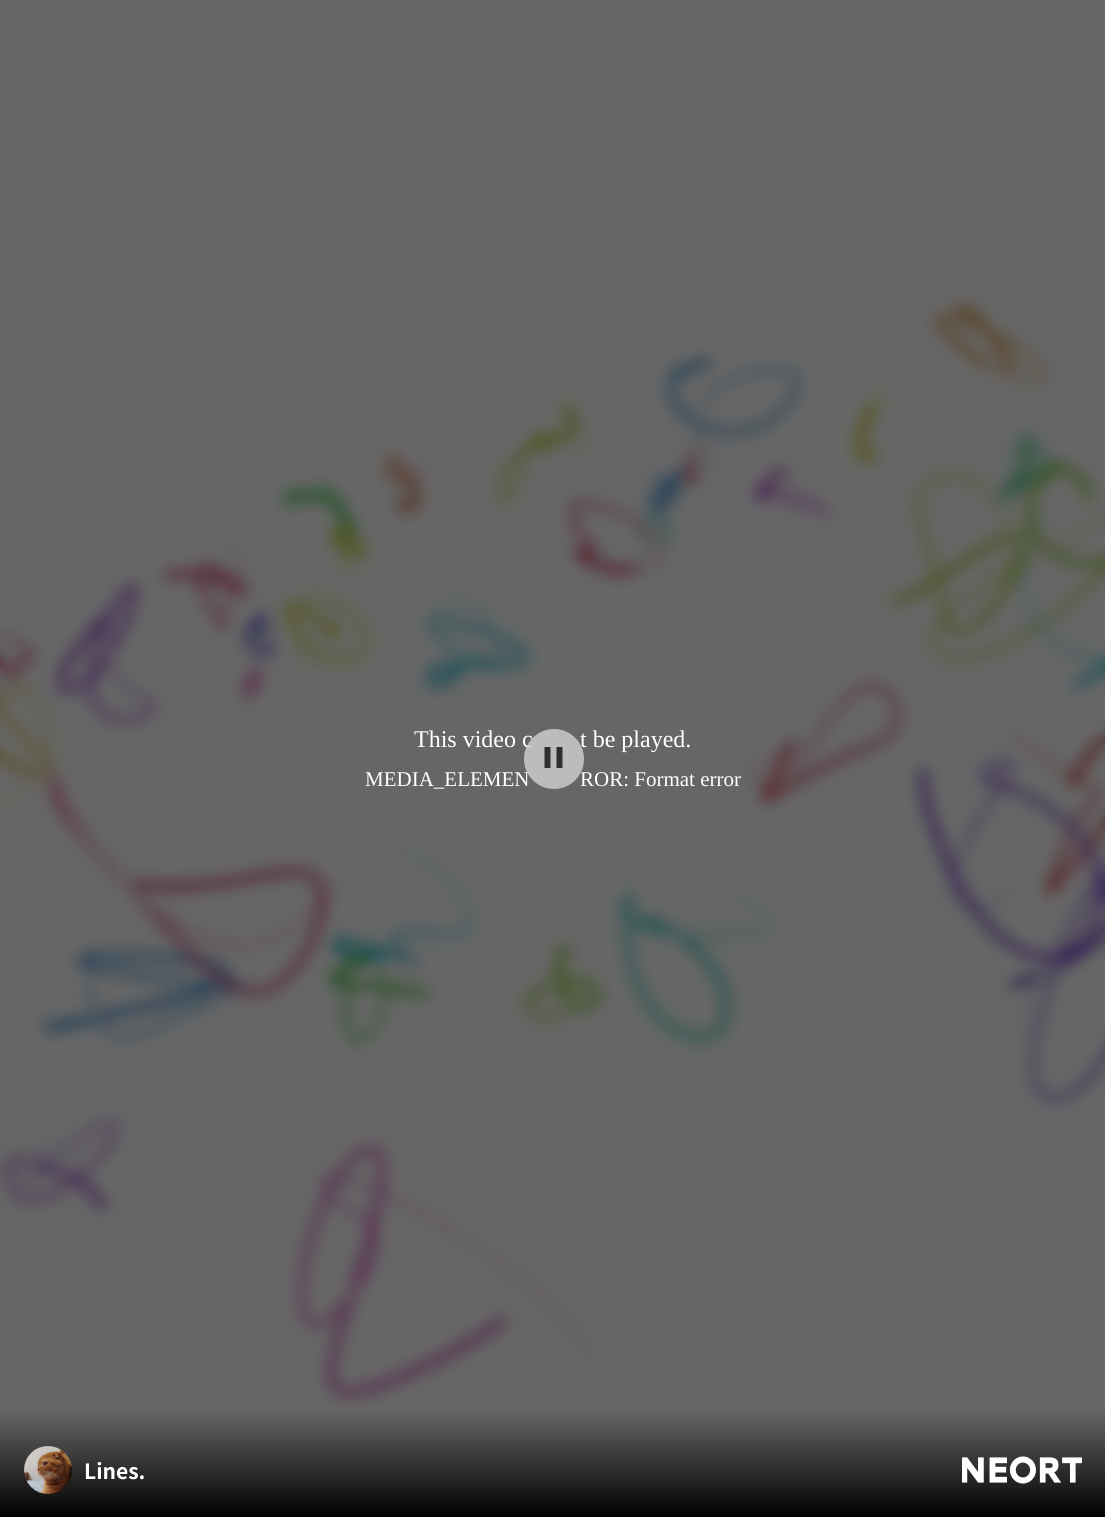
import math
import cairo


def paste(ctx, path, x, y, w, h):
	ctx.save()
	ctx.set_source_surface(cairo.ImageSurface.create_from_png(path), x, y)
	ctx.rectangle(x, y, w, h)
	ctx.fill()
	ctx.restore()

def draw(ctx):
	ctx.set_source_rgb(0.4, 0.4, 0.4)
	ctx.paint()
	paste(ctx, 'media/2.png', 0, 307, 1105, 1086)
	paste(ctx, 'media/3.png', 0, 294, 1105, 1115)
	ctx.select_font_face('Liberation Serif')
	ctx.set_font_size(24)
	ctx.set_source_rgb(1, 1, 1)
	ctx.move_to(414, 747)
	ctx.show_text('This video c')
	ctx.move_to(580, 747)
	ctx.show_text('t be played.')
	ctx.set_font_size(21)
	ctx.move_to(365, 786)
	ctx.show_text('MEDIA_ELEMEN')
	ctx.move_to(580, 786)
	ctx.show_text('ROR: Format error')
	ctx.set_source_rgba(0.847, 0.847, 0.847, 0.75)
	ctx.new_path()
	ctx.arc(554, 759, 30, 0, 2 * math.pi)
	ctx.fill()
	paste(ctx, 'media/1.png', 544, 747, 19, 21)
	gradient = cairo.LinearGradient(553, 1410, 553, 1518)
	gradient.add_color_stop_rgba(0, 0.4, 0.4, 0.4, 1)
	gradient.add_color_stop_rgba(1, 0, 0, 0, 1)
	ctx.set_source(gradient)
	ctx.rectangle(0, 1413, 1105, 104)
	ctx.fill()
	paste(ctx, 'media/4.png', 24, 1446, 48, 48)
	ctx.select_font_face('Noto Sans JP', cairo.FONT_SLANT_NORMAL, cairo.FONT_WEIGHT_BOLD)
	ctx.set_source_rgb(1, 1, 1)
	ctx.move_to(84, 1479)
	ctx.show_text('Lines.')
	paste(ctx, 'media/5.png', 962, 1456, 120, 28)


surface = cairo.ImageSurface(cairo.FORMAT_RGB24, 1105, 1517)
ctx = cairo.Context(surface)
options = cairo.FontOptions()
options.set_hint_metrics(cairo.HINT_METRICS_OFF)
options.set_hint_style(cairo.HINT_STYLE_NONE)
ctx.set_font_options(options)
ctx.set_miter_limit(4)
draw(ctx)
surface.write_to_png('image.png')
